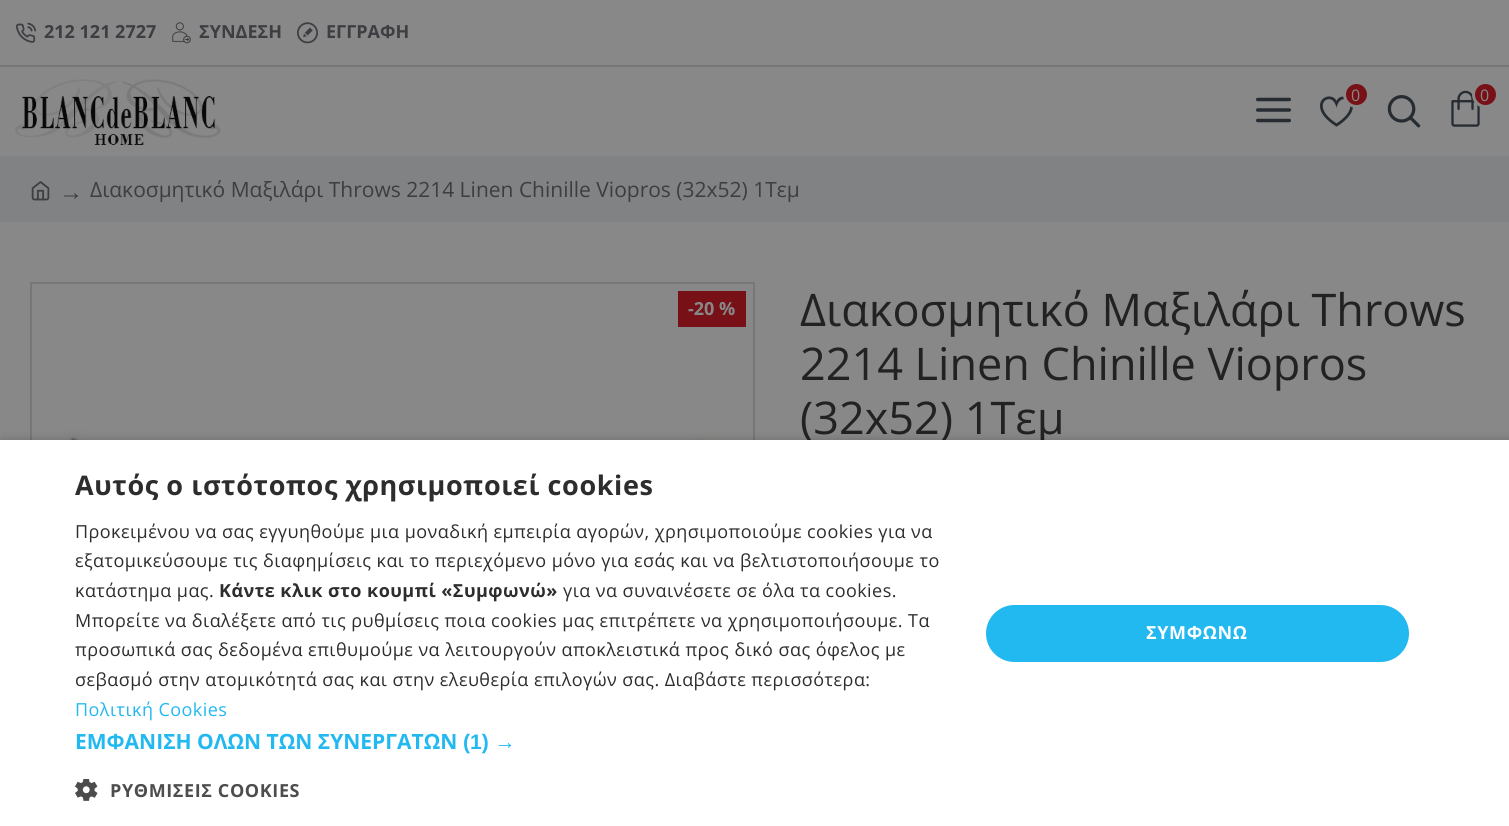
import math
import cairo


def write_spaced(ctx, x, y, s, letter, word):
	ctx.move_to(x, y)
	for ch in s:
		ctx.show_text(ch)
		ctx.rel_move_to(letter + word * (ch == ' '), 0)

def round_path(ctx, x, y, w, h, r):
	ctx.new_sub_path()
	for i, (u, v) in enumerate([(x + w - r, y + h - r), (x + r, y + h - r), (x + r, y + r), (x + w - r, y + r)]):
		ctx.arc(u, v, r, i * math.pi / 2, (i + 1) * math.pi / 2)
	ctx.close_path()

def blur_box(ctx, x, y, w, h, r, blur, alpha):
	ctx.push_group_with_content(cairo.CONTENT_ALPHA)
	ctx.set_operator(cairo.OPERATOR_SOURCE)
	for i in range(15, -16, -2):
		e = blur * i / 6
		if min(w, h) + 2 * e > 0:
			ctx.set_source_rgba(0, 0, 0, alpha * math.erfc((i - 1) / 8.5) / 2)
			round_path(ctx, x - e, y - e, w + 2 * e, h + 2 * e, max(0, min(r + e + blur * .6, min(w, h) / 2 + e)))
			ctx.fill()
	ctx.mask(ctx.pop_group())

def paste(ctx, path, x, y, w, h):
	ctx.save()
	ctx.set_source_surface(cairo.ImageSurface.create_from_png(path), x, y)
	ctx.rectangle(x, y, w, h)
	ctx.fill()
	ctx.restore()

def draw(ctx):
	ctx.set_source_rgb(0.533, 0.533, 0.533)
	ctx.paint()
	ctx.set_source_rgb(0.467, 0.467, 0.467)
	ctx.rectangle(0, 65, 1509, 2)
	ctx.fill()
	paste(ctx, 'media/1.png', 16, 22, 21, 21)
	ctx.select_font_face('Open Sans', cairo.FONT_SLANT_NORMAL, cairo.FONT_WEIGHT_BOLD)
	ctx.set_font_size(18)
	ctx.set_source_rgb(0.239, 0.239, 0.259)
	ctx.move_to(44, 38)
	ctx.show_text('212 121 2727')
	paste(ctx, 'media/2.png', 172, 22, 19, 22)
	ctx.move_to(199, 38)
	ctx.show_text('ΣΥΝΔΕΣΗ')
	paste(ctx, 'media/3.png', 297, 22, 21, 22)
	ctx.move_to(326, 38)
	ctx.show_text('ΕΓΓΡΑΦΗ')
	paste(ctx, 'media/4.png', 15, 79, 206, 66)
	paste(ctx, 'media/5.png', 1256, 97, 35, 26)
	paste(ctx, 'media/6.png', 1320, 96, 33, 31)
	ctx.set_source_rgb(0.467, 0.063, 0.09)
	ctx.arc(1356.5, 94.5, 12, 0, 2 * math.pi)
	ctx.fill_preserve()
	ctx.set_source_rgb(0.533, 0.533, 0.533)
	ctx.set_line_width(3)
	ctx.stroke()
	ctx.select_font_face('Open Sans')
	ctx.set_font_size(16)
	ctx.move_to(1351, 101)
	ctx.show_text('0')
	paste(ctx, 'media/7.png', 1387, 95, 34, 33)
	paste(ctx, 'media/8.png', 1451, 90, 29, 37)
	ctx.set_source_rgb(0.467, 0.063, 0.09)
	ctx.arc(1485.5, 94.5, 12, 0, 2 * math.pi)
	ctx.fill_preserve()
	ctx.set_source_rgb(0.533, 0.533, 0.533)
	ctx.stroke()
	ctx.move_to(1480, 101)
	ctx.show_text('0')
	ctx.set_source_rgb(0.506, 0.51, 0.514)
	ctx.rectangle(0, 156, 1509, 66)
	ctx.fill()
	paste(ctx, 'media/9.png', 31, 181, 19, 20)
	ctx.select_font_face('Liberation Serif')
	ctx.set_font_size(24)
	ctx.set_source_rgb(0.239, 0.239, 0.259)
	ctx.move_to(59, 200)
	ctx.show_text('→')
	ctx.select_font_face('Open Sans')
	ctx.set_font_size(21)
	ctx.move_to(90, 197)
	ctx.show_text('Διακοσμητικό Μαξιλάρι Throws 2214 Linen Chinille Viopros (32x52) 1Τεμ')
	ctx.rectangle(31, 283, 723, 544)
	ctx.set_source_rgb(0.467, 0.467, 0.467)
	ctx.set_line_width(2)
	ctx.stroke()
	ctx.set_source_rgb(0.467, 0.063, 0.09)
	ctx.rectangle(678, 291, 68, 36)
	ctx.fill()
	ctx.select_font_face('Open Sans', cairo.FONT_SLANT_NORMAL, cairo.FONT_WEIGHT_BOLD)
	ctx.set_font_size(18)
	ctx.set_source_rgb(0.533, 0.533, 0.533)
	ctx.move_to(688, 315)
	ctx.show_text('-20 %')
	paste(ctx, 'media/10.png', 64, 431, 648, 9)
	ctx.select_font_face('Open Sans')
	ctx.set_font_size(45)
	ctx.set_source_rgb(0.133, 0.133, 0.133)
	for x, y, s in [
		(800, 326, 'Διακοσμητικό Μαξιλάρι Throws'),
		(800, 380, '2214 Linen Chinille Viopros'),
		(800, 434, '(32x52) 1Τεμ'),
	]:
		ctx.move_to(x, y)
		ctx.show_text(s)
	ctx.set_source_rgb(0, 0, 0)
	blur_box(ctx, 2, 443, 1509, 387, 0, 6, 0.35)
	ctx.set_source_rgb(1, 1, 1)
	ctx.rectangle(0, 440, 1509, 386)
	ctx.fill()
	ctx.select_font_face('Open Sans', cairo.FONT_SLANT_NORMAL, cairo.FONT_WEIGHT_BOLD)
	ctx.set_font_size(27)
	ctx.set_source_rgb(0.176, 0.176, 0.176)
	write_spaced(ctx, 75, 495, 'Αυτός ο ιστότοπος χρησιμοποιεί cookies', 0.6, 0)
	ctx.select_font_face('Open Sans')
	ctx.set_font_size(18)
	for x, y, s in [
		(75, 538, 'Προκειμένου να σας εγγυηθούμε μια μοναδική εμπειρία αγορών, χρησιμοποιούμε cookies για να'),
		(75, 567, 'εξατομικεύσουμε τις διαφημίσεις και το περιεχόμενο μόνο για εσάς και να βελτιστοποιήσουμε το'),
		(75, 597, 'κατάστημα μας.'),
	]:
		write_spaced(ctx, x, y, s, 0.45, 0)
	ctx.select_font_face('Open Sans', cairo.FONT_SLANT_NORMAL, cairo.FONT_WEIGHT_BOLD)
	write_spaced(ctx, 219, 597, 'Κάντε κλικ στο κουμπί «Συμφωνώ»', 0.45, 0)
	ctx.select_font_face('Open Sans')
	for x, y, s in [
		(563, 597, 'για να συναινέσετε σε όλα τα cookies.'),
		(75, 627, 'Μπορείτε να διαλέξετε από τις ρυθμίσεις ποια cookies μας επιτρέπετε να χρησιμοποιήσουμε. Τα'),
		(75, 656, 'προσωπικά σας δεδομένα επιθυμούμε να λειτουργούν αποκλειστικά προς δικό σας όφελος με'),
		(75, 686, 'σεβασμό στην ατομικότητά σας και στην ελευθερία επιλογών σας. Διαβάστε περισσότερα:'),
	]:
		write_spaced(ctx, x, y, s, 0.45, 0)
	ctx.set_source_rgb(0.133, 0.722, 0.941)
	write_spaced(ctx, 75, 716, 'Πολιτική Cookies', 0.45, 0)
	ctx.select_font_face('Open Sans', cairo.FONT_SLANT_NORMAL, cairo.FONT_WEIGHT_BOLD)
	ctx.set_font_size(21)
	ctx.move_to(75, 749)
	ctx.show_text('ΕΜΦΑΝΙΣΗ ΟΛΩΝ ΤΩΝ ΣΥΝΕΡΓΑΤΩΝ')
	ctx.select_font_face('Liberation Sans', cairo.FONT_SLANT_NORMAL, cairo.FONT_WEIGHT_BOLD)
	ctx.move_to(463, 749)
	ctx.show_text('(1) →')
	paste(ctx, 'media/11.png', 75, 779, 23, 22)
	ctx.select_font_face('Open Sans', cairo.FONT_SLANT_NORMAL, cairo.FONT_WEIGHT_BOLD)
	ctx.set_font_size(18)
	ctx.set_source_rgb(0.302, 0.302, 0.302)
	write_spaced(ctx, 110, 797, 'ΡΥΘΜΙΣΕΙΣ COOKIES', 0.6, 0)
	ctx.set_source_rgb(0.133, 0.722, 0.941)
	round_path(ctx, 986, 605, 423, 57, 28.5)
	ctx.fill()
	ctx.set_source_rgb(1, 1, 1)
	write_spaced(ctx, 1146, 639, 'ΣΥΜΦΩΝΩ', 0.6, 0)


surface = cairo.ImageSurface(cairo.FORMAT_RGB24, 1509, 826)
ctx = cairo.Context(surface)
options = cairo.FontOptions()
options.set_hint_metrics(cairo.HINT_METRICS_OFF)
options.set_hint_style(cairo.HINT_STYLE_NONE)
ctx.set_font_options(options)
ctx.set_miter_limit(4)
draw(ctx)
surface.write_to_png('image.png')
